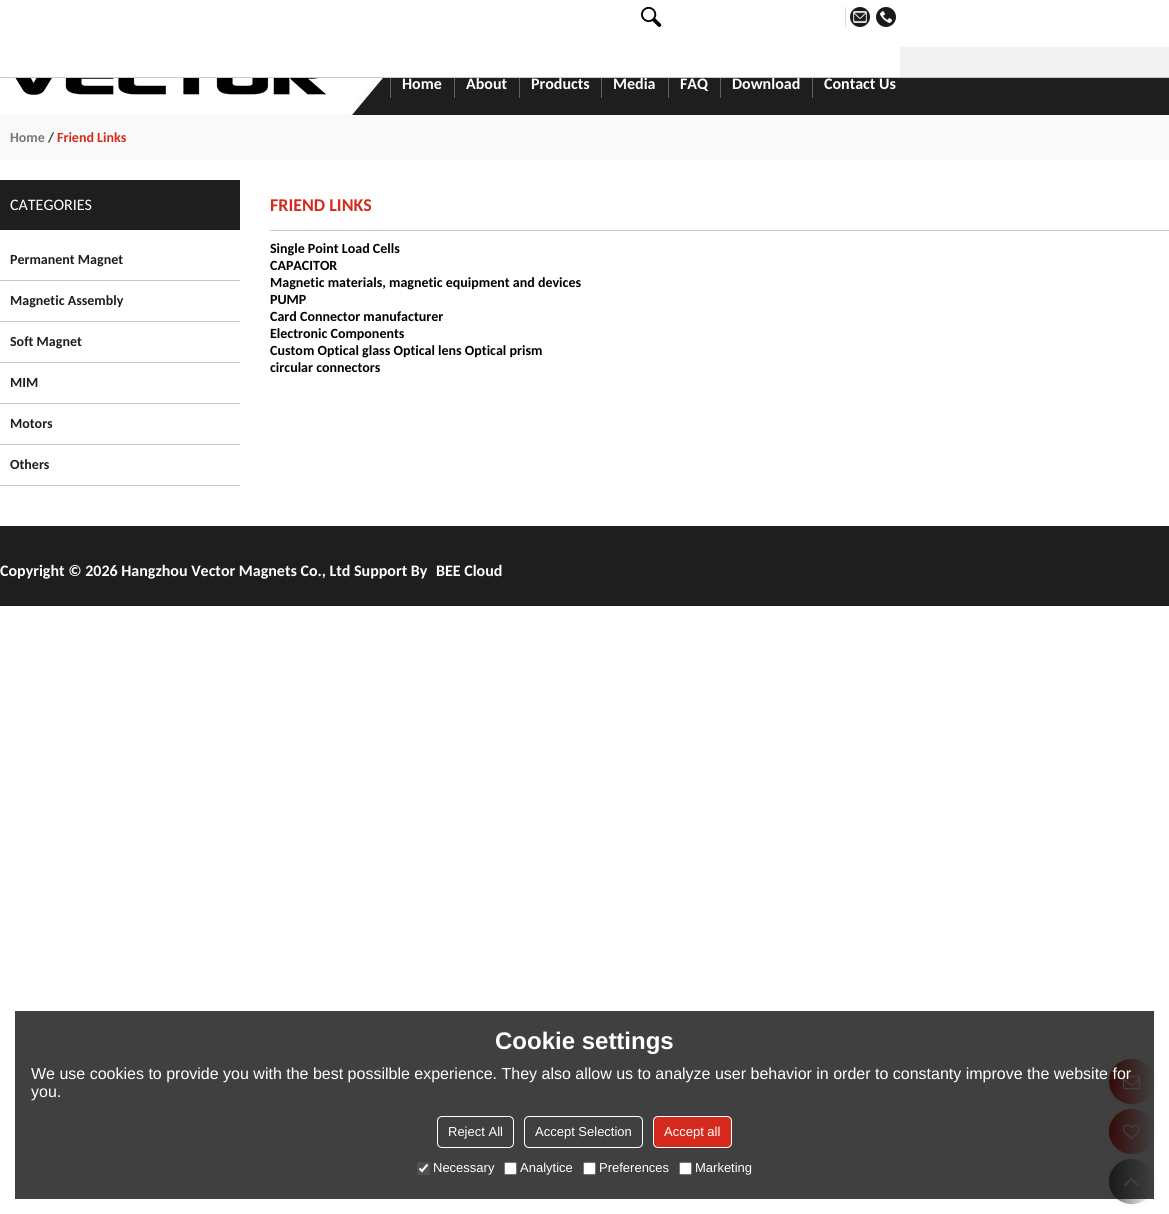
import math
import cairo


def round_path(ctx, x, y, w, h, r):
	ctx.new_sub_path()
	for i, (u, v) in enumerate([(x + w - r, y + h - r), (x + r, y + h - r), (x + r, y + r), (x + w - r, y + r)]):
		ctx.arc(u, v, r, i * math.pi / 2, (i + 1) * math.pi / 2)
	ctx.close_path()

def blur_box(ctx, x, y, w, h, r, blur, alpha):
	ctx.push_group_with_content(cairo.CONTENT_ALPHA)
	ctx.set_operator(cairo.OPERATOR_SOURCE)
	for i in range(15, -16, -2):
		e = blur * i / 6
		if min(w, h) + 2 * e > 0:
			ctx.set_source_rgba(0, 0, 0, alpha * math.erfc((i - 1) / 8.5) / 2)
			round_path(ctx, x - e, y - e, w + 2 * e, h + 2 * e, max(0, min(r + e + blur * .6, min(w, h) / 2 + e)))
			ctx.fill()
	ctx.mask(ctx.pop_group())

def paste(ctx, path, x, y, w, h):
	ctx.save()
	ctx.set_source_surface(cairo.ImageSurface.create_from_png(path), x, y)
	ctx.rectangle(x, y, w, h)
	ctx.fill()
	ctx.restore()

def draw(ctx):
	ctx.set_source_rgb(1, 1, 1)
	ctx.paint()
	paste(ctx, 'media/4.png', 348, 78, 821, 37)
	ctx.set_source_rgb(0.384, 0.384, 0.384)
	ctx.rectangle(390, 73, 1, 25)
	ctx.rectangle(454, 73, 1, 25)
	ctx.rectangle(519, 73, 1, 25)
	ctx.rectangle(601, 73, 1, 25)
	ctx.rectangle(668, 73, 1, 25)
	ctx.rectangle(720, 73, 1, 25)
	ctx.rectangle(812, 73, 1, 25)
	ctx.fill()
	ctx.set_source_rgb(1, 1, 1)
	ctx.rectangle(390, 73, 423, 4)
	ctx.fill()
	ctx.select_font_face('Carlito', cairo.FONT_SLANT_NORMAL, cairo.FONT_WEIGHT_BOLD)
	ctx.set_font_size(16)
	for x, y, s in [
		(466, 89, 'About'),
		(531, 89, 'Products'),
		(613, 89, 'Media'),
		(732, 89, 'Download'),
	]:
		ctx.move_to(x, y)
		ctx.show_text(s)
	ctx.set_source_rgb(0.784, 0.784, 0.784)
	ctx.rectangle(0, 77, 1169, 1)
	ctx.fill()
	paste(ctx, 'media/1.png', 641, 7, 21, 20)
	ctx.set_source_rgb(0.863, 0.863, 0.863)
	ctx.rectangle(845, 7, 1, 20)
	ctx.fill()
	ctx.set_source_rgb(0.098, 0.098, 0.098)
	ctx.arc(860, 17, 10, 0, 2 * math.pi)
	ctx.fill()
	paste(ctx, 'media/2.png', 853, 11, 14, 12)
	ctx.arc(886, 17, 10, 0, 2 * math.pi)
	ctx.fill()
	paste(ctx, 'media/3.png', 880, 11, 12, 12)
	ctx.set_source_rgb(0.949, 0.949, 0.949)
	ctx.rectangle(900, 47, 269, 30)
	ctx.fill()
	paste(ctx, 'media/5.png', 1, 78, 325, 17)
	ctx.set_source_rgb(1, 1, 1)
	for x, y, s in [
		(402, 89, 'Home'),
		(680, 89, 'FAQ'),
		(824, 89, 'Contact Us'),
	]:
		ctx.move_to(x, y)
		ctx.show_text(s)
	ctx.set_source_rgb(0.973, 0.973, 0.973)
	ctx.rectangle(0, 115, 1169, 45)
	ctx.fill()
	ctx.set_font_size(14)
	ctx.set_source_rgb(0.467, 0.467, 0.467)
	ctx.move_to(10, 142)
	ctx.show_text('Home')
	ctx.set_source_rgb(0.2, 0.2, 0.2)
	ctx.move_to(48, 142)
	ctx.show_text('/')
	ctx.set_source_rgb(0.835, 0.169, 0.118)
	ctx.move_to(57, 142)
	ctx.show_text('Friend Links')
	ctx.set_source_rgb(0.118, 0.118, 0.118)
	ctx.rectangle(0, 180, 240, 50)
	ctx.fill()
	ctx.select_font_face('Carlito')
	ctx.set_font_size(16)
	ctx.set_source_rgb(1, 1, 1)
	ctx.move_to(10, 210)
	ctx.show_text('CATEGORIES')
	ctx.set_source_rgb(0.784, 0.784, 0.784)
	ctx.rectangle(0, 280, 240, 1)
	ctx.fill()
	ctx.select_font_face('Carlito', cairo.FONT_SLANT_NORMAL, cairo.FONT_WEIGHT_BOLD)
	ctx.set_font_size(14)
	ctx.set_source_rgb(0.118, 0.118, 0.118)
	ctx.move_to(10, 264)
	ctx.show_text('Permanent Magnet')
	ctx.set_source_rgb(0.784, 0.784, 0.784)
	ctx.rectangle(0, 321, 240, 1)
	ctx.fill()
	ctx.set_source_rgb(0.118, 0.118, 0.118)
	ctx.move_to(10, 305)
	ctx.show_text('Magnetic Assembly')
	ctx.set_source_rgb(0.784, 0.784, 0.784)
	ctx.rectangle(0, 362, 240, 1)
	ctx.fill()
	ctx.set_source_rgb(0.118, 0.118, 0.118)
	ctx.move_to(10, 346)
	ctx.show_text('Soft Magnet')
	ctx.set_source_rgb(0.784, 0.784, 0.784)
	ctx.rectangle(0, 403, 240, 1)
	ctx.fill()
	ctx.set_source_rgb(0.118, 0.118, 0.118)
	ctx.move_to(10, 387)
	ctx.show_text('MIM')
	ctx.set_source_rgb(0.784, 0.784, 0.784)
	ctx.rectangle(0, 444, 240, 1)
	ctx.fill()
	ctx.set_source_rgb(0.118, 0.118, 0.118)
	ctx.move_to(10, 428)
	ctx.show_text('Motors')
	ctx.set_source_rgb(0.784, 0.784, 0.784)
	ctx.rectangle(0, 485, 240, 1)
	ctx.fill()
	ctx.set_source_rgb(0.118, 0.118, 0.118)
	ctx.move_to(10, 469)
	ctx.show_text('Others')
	ctx.set_source_rgb(0.784, 0.784, 0.784)
	ctx.rectangle(270, 230, 899, 1)
	ctx.fill()
	ctx.set_font_size(18)
	ctx.set_source_rgb(0.835, 0.169, 0.118)
	ctx.move_to(270, 211)
	ctx.show_text('FRIEND LINKS')
	ctx.set_font_size(14)
	ctx.set_source_rgb(0, 0, 0)
	for x, y, s in [
		(270, 253, 'Single Point Load Cells'),
		(270, 270, 'CAPACITOR'),
		(270, 287, 'Magnetic materials, magnetic equipment and devices'),
		(270, 304, 'PUMP'),
		(270, 321, 'Card Connector manufacturer'),
		(270, 338, 'Electronic Components'),
		(270, 355, 'Custom Optical glass Optical lens Optical prism'),
		(270, 372, 'circular connectors'),
	]:
		ctx.move_to(x, y)
		ctx.show_text(s)
	ctx.set_source_rgb(0.118, 0.118, 0.118)
	ctx.rectangle(0, 526, 1169, 80)
	ctx.fill()
	ctx.set_font_size(16)
	ctx.set_source_rgb(1, 1, 1)
	ctx.move_to(0, 576)
	ctx.show_text('Copyright © 2026 Hangzhou Vector Magnets Co., Ltd Support By')
	ctx.move_to(436, 576)
	ctx.show_text('BEE Cloud')
	ctx.set_source_rgb(0.933, 0.933, 0.933)
	blur_box(ctx, 1109, 1059, 45, 45, 22.5, 2.5, 1)
	gradient = cairo.LinearGradient(1109, 1082, 1154, 1082)
	gradient.add_color_stop_rgba(0, 0.835, 0.169, 0.118, 1)
	gradient.add_color_stop_rgba(1, 1, 1, 1, 1)
	ctx.set_source(gradient)
	ctx.arc(1131.5, 1081.5, 22.5, 0, 2 * math.pi)
	ctx.fill()
	paste(ctx, 'media/6.png', 1123, 1075, 17, 15)
	ctx.set_source_rgb(0.933, 0.933, 0.933)
	blur_box(ctx, 1109, 1109, 45, 45, 22.5, 2.5, 1)
	gradient = cairo.LinearGradient(1109, 1132, 1154, 1132)
	gradient.add_color_stop_rgba(0, 0.835, 0.169, 0.118, 1)
	gradient.add_color_stop_rgba(1, 1, 1, 1, 1)
	ctx.set_source(gradient)
	ctx.arc(1131.5, 1131.5, 22.5, 0, 2 * math.pi)
	ctx.fill()
	paste(ctx, 'media/7.png', 1123, 1124, 17, 16)
	ctx.set_source_rgb(0.933, 0.933, 0.933)
	blur_box(ctx, 1109, 1159, 45, 45, 22.5, 2.5, 1)
	gradient = cairo.LinearGradient(1109, 1182, 1154, 1182)
	gradient.add_color_stop_rgba(0, 0.4, 0.4, 0.4, 1)
	gradient.add_color_stop_rgba(1, 1, 1, 1, 1)
	ctx.set_source(gradient)
	ctx.arc(1131.5, 1181.5, 22.5, 0, 2 * math.pi)
	ctx.fill()
	paste(ctx, 'media/8.png', 1124, 1177, 15, 9)
	ctx.set_source_rgba(0, 0, 0, 0.75)
	ctx.rectangle(15, 1011, 1139, 188)
	ctx.fill()
	ctx.select_font_face('Liberation Sans', cairo.FONT_SLANT_NORMAL, cairo.FONT_WEIGHT_BOLD)
	ctx.set_font_size(24)
	ctx.set_source_rgb(1, 1, 1)
	ctx.move_to(495, 1049)
	ctx.show_text('Cookie settings')
	ctx.select_font_face('Liberation Sans')
	ctx.set_font_size(16)
	ctx.move_to(31, 1079)
	ctx.show_text('We use cookies to provide you with the best possilble experience. They also allow us to analyze user behavior in order to constanty improve the website for')
	ctx.move_to(31, 1097)
	ctx.show_text('you.')
	round_path(ctx, 437.5, 1116.5, 76, 31, 4.5)
	ctx.set_line_width(1)
	ctx.stroke()
	ctx.set_font_size(13)
	ctx.move_to(448, 1136)
	ctx.show_text('Reject All')
	round_path(ctx, 524.5, 1116.5, 118, 31, 4.5)
	ctx.stroke()
	ctx.move_to(535, 1136)
	ctx.show_text('Accept Selection')
	ctx.set_source_rgb(0.835, 0.169, 0.118)
	round_path(ctx, 653.5, 1116.5, 78, 31, 4.5)
	ctx.fill_preserve()
	ctx.set_source_rgb(1, 1, 1)
	ctx.stroke()
	ctx.move_to(664, 1136)
	ctx.show_text('Accept all')
	ctx.set_source_rgb(0.314, 0.314, 0.314)
	round_path(ctx, 417, 1162, 13, 13, 2)
	ctx.fill()
	ctx.new_path()
	ctx.move_to(419.5, 1168.5)
	ctx.line_to(422, 1171)
	ctx.line_to(427.5, 1164.5)
	ctx.set_source_rgb(1, 1, 1)
	ctx.set_line_width(2.1)
	ctx.stroke()
	ctx.move_to(433, 1172)
	ctx.show_text('Necessary')
	round_path(ctx, 504.5, 1162.5, 12, 12, 1.5)
	ctx.fill_preserve()
	ctx.set_source_rgb(0.463, 0.463, 0.463)
	ctx.set_line_width(1)
	ctx.stroke()
	ctx.set_source_rgb(1, 1, 1)
	ctx.move_to(520, 1172)
	ctx.show_text('Analytice')
	round_path(ctx, 583.5, 1162.5, 12, 12, 1.5)
	ctx.fill_preserve()
	ctx.set_source_rgb(0.463, 0.463, 0.463)
	ctx.stroke()
	ctx.set_source_rgb(1, 1, 1)
	ctx.move_to(599, 1172)
	ctx.show_text('Preferences')
	round_path(ctx, 679.5, 1162.5, 12, 12, 1.5)
	ctx.fill_preserve()
	ctx.set_source_rgb(0.463, 0.463, 0.463)
	ctx.stroke()
	ctx.set_source_rgb(1, 1, 1)
	ctx.move_to(695, 1172)
	ctx.show_text('Marketing')


surface = cairo.ImageSurface(cairo.FORMAT_RGB24, 1169, 1214)
ctx = cairo.Context(surface)
options = cairo.FontOptions()
options.set_hint_metrics(cairo.HINT_METRICS_OFF)
options.set_hint_style(cairo.HINT_STYLE_NONE)
ctx.set_font_options(options)
ctx.set_miter_limit(4)
draw(ctx)
surface.write_to_png('image.png')
